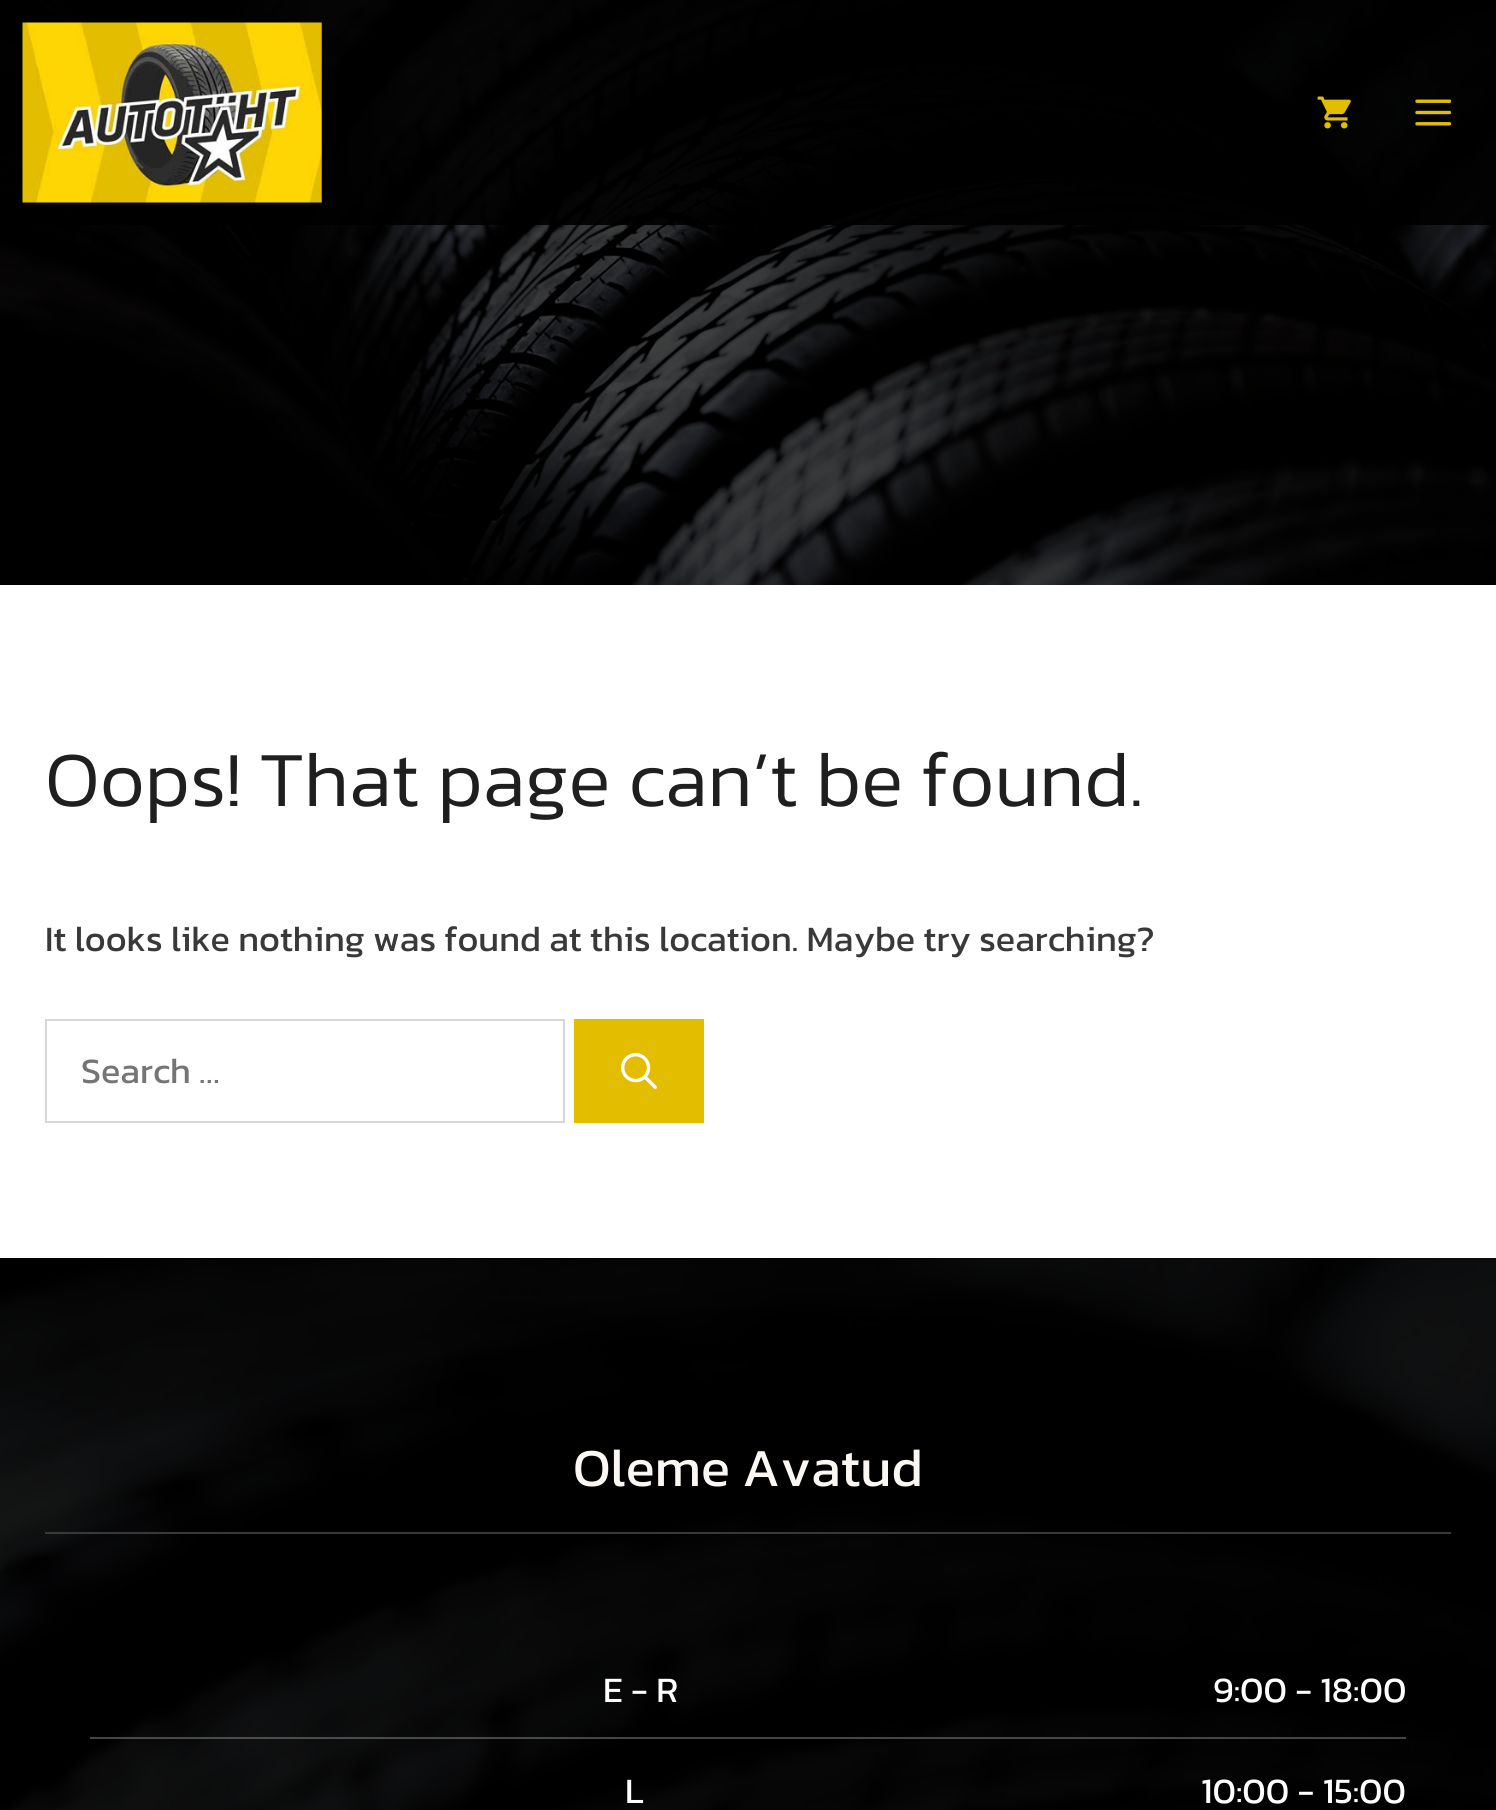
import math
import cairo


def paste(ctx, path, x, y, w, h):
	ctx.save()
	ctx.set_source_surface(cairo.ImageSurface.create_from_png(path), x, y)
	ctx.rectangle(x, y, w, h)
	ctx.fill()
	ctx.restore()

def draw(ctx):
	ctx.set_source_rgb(1, 1, 1)
	ctx.paint()
	paste(ctx, 'media/1.png', 0, 0, 1496, 585)
	ctx.set_source_rgba(0, 0, 0, 0.9)
	ctx.rectangle(0, 0, 1496, 225)
	ctx.fill()
	paste(ctx, 'media/2.png', 22, 22, 300, 181)
	paste(ctx, 'media/3.png', 1317, 96, 34, 33)
	paste(ctx, 'media/4.png', 1415, 99, 36, 27)
	ctx.select_font_face('Kanit Light')
	ctx.set_font_size(78.75)
	ctx.set_source_rgb(0.122, 0.122, 0.122)
	ctx.move_to(45, 806)
	ctx.show_text('Oops! That page can’t be found.')
	ctx.select_font_face('Kanit')
	ctx.set_font_size(36)
	ctx.set_source_rgb(0.224, 0.224, 0.224)
	ctx.move_to(45, 951)
	ctx.show_text('It looks like nothing was found at this location. Maybe try searching?')
	ctx.rectangle(46, 1020, 518, 102)
	ctx.set_source_rgb(0.843, 0.843, 0.843)
	ctx.stroke()
	ctx.set_source_rgb(0.459, 0.459, 0.459)
	ctx.move_to(81, 1083)
	ctx.show_text('Search …')
	ctx.set_source_rgb(0.89, 0.741, 0)
	ctx.rectangle(574, 1019, 130, 104)
	ctx.fill()
	paste(ctx, 'media/5.png', 621, 1053, 36, 36)
	ctx.set_source_rgb(0, 0, 0)
	ctx.rectangle(0, 1258, 1496, 552)
	ctx.fill()
	paste(ctx, 'media/6.png', 0, 1258, 1496, 552)
	ctx.set_source_rgb(0.224, 0.224, 0.224)
	ctx.rectangle(45, 1532, 1406, 2)
	ctx.fill()
	ctx.set_font_size(54)
	ctx.set_source_rgb(0.984, 0.965, 0.953)
	ctx.move_to(573, 1486)
	ctx.show_text('Oleme Avatud')
	ctx.set_source_rgba(0.671, 0.671, 0.671, 0.4)
	ctx.rectangle(90, 1737, 1316, 2)
	ctx.fill()
	ctx.set_font_size(36)
	ctx.set_source_rgb(1, 1, 1)
	for x, y, s in [
		(603, 1702, 'E - R'),
		(1213, 1702, '9:00 - 18:00'),
		(625, 1803, 'L'),
		(1201, 1803, '10:00 - 15:00'),
	]:
		ctx.move_to(x, y)
		ctx.show_text(s)


surface = cairo.ImageSurface(cairo.FORMAT_RGB24, 1496, 1810)
ctx = cairo.Context(surface)
options = cairo.FontOptions()
options.set_hint_metrics(cairo.HINT_METRICS_OFF)
options.set_hint_style(cairo.HINT_STYLE_NONE)
ctx.set_font_options(options)
ctx.set_miter_limit(4)
draw(ctx)
surface.write_to_png('image.png')
